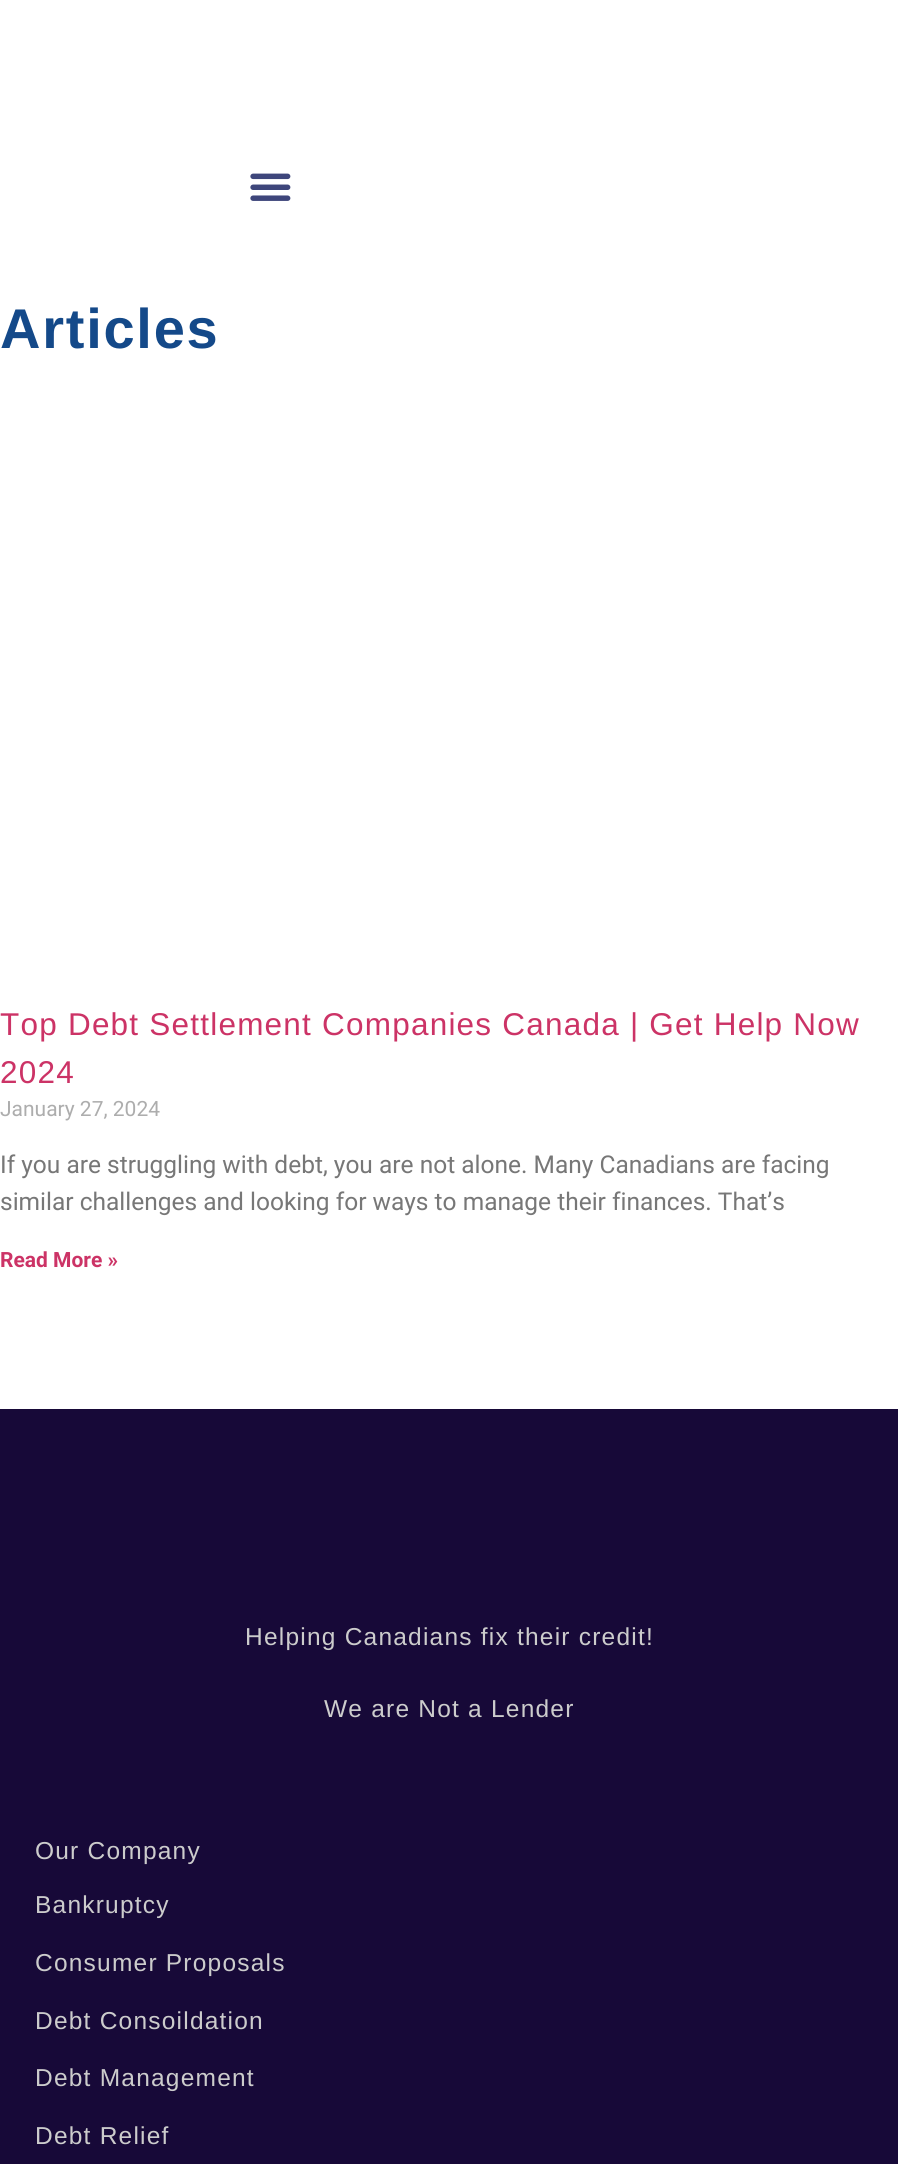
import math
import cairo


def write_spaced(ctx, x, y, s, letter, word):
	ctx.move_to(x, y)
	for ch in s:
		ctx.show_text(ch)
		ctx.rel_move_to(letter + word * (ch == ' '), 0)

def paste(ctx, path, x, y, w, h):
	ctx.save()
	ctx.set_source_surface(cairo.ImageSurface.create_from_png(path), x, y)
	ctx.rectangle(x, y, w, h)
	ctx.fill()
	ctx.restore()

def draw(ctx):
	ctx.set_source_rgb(1, 1, 1)
	ctx.paint()
	paste(ctx, 'media/1.png', 250, 173, 41, 28)
	ctx.select_font_face('Liberation Sans', cairo.FONT_SLANT_NORMAL, cairo.FONT_WEIGHT_BOLD)
	ctx.set_font_size(56)
	ctx.set_source_rgb(0.082, 0.286, 0.537)
	write_spaced(ctx, 0, 348, 'Articles', 1.75, 0)
	ctx.select_font_face('Liberation Sans')
	ctx.set_font_size(31.5)
	ctx.set_source_rgb(0.8, 0.2, 0.4)
	write_spaced(ctx, 0, 1035, 'Top Debt Settlement Companies Canada | Get Help Now', 1.22, 0)
	write_spaced(ctx, 0, 1083, '2024', 1.22, 0)
	ctx.select_font_face('Roboto')
	ctx.set_font_size(21)
	ctx.set_source_rgb(0.678, 0.678, 0.678)
	ctx.move_to(0, 1116)
	ctx.show_text('January 27, 2024')
	ctx.set_font_size(24.5)
	ctx.set_source_rgb(0.467, 0.467, 0.467)
	ctx.move_to(0, 1173)
	ctx.show_text('If you are struggling with debt, you are not alone. Many Canadians are facing')
	ctx.move_to(0, 1210)
	ctx.show_text('similar challenges and looking for ways to manage their finances. That’s')
	ctx.select_font_face('Roboto', cairo.FONT_SLANT_NORMAL, cairo.FONT_WEIGHT_BOLD)
	ctx.set_font_size(21)
	ctx.set_source_rgb(0.8, 0.2, 0.4)
	ctx.move_to(0, 1267)
	ctx.show_text('Read More »')
	ctx.set_source_rgb(0.09, 0.039, 0.22)
	ctx.rectangle(0, 1409, 898, 755)
	ctx.fill()
	ctx.select_font_face('Liberation Sans')
	ctx.set_font_size(24.5)
	ctx.set_source_rgb(0.8, 0.8, 0.8)
	for x, y, s in [
		(245, 1645, 'Helping Canadians fix their credit!'),
		(324, 1717, 'We are Not a Lender'),
		(35, 1859, 'Our Company'),
		(35, 1913, 'Bankruptcy'),
		(35, 1971, 'Consumer Proposals'),
		(35, 2029, 'Debt Consoildation'),
		(35, 2086, 'Debt Management'),
		(35, 2144, 'Debt Relief'),
	]:
		write_spaced(ctx, x, y, s, 1.22, 0)


surface = cairo.ImageSurface(cairo.FORMAT_RGB24, 898, 2164)
ctx = cairo.Context(surface)
options = cairo.FontOptions()
options.set_hint_metrics(cairo.HINT_METRICS_OFF)
options.set_hint_style(cairo.HINT_STYLE_NONE)
ctx.set_font_options(options)
ctx.set_miter_limit(4)
draw(ctx)
surface.write_to_png('image.png')
